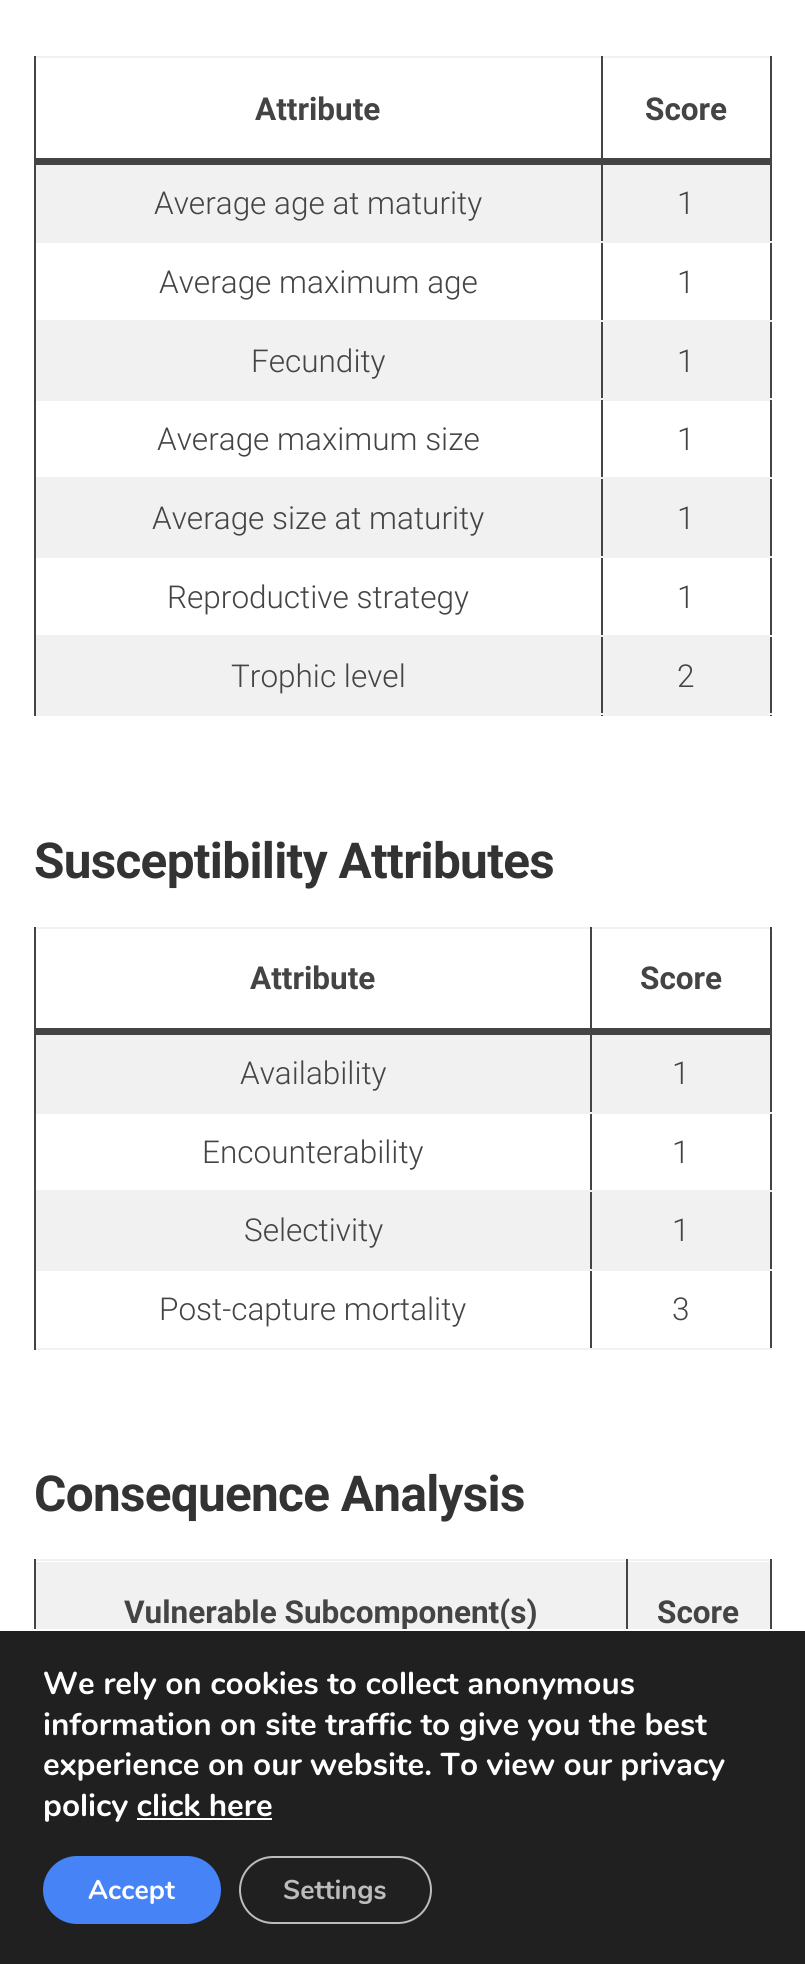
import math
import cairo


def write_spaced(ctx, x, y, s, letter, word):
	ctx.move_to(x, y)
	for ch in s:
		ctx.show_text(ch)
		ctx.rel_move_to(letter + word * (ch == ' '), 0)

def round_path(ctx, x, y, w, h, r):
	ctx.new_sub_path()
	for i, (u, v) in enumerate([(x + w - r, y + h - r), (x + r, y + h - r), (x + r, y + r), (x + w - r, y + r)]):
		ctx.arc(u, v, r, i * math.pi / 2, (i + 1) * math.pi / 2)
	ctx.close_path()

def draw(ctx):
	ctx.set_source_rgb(1, 1, 1)
	ctx.paint()
	ctx.set_source_rgb(0.945, 0.945, 0.945)
	ctx.rectangle(34, 56, 738, 2)
	ctx.rectangle(36, 165, 734, 76)
	ctx.rectangle(36, 322, 734, 79)
	ctx.rectangle(36, 479, 734, 77)
	ctx.fill()
	ctx.set_source_rgb(0.267, 0.267, 0.267)
	ctx.rectangle(770, 160, 2, 556)
	ctx.fill()
	ctx.set_source_rgb(0.945, 0.945, 0.945)
	ctx.rectangle(36, 637, 734, 79)
	ctx.fill()
	ctx.set_source_rgb(0.267, 0.267, 0.267)
	ctx.rectangle(601, 635, 2, 81)
	ctx.fill()
	ctx.set_source_rgb(0.945, 0.945, 0.945)
	ctx.rectangle(601, 635, 171, 2)
	ctx.fill()
	ctx.set_source_rgb(0.267, 0.267, 0.267)
	ctx.rectangle(601, 556, 2, 81)
	ctx.fill()
	ctx.set_source_rgb(0.945, 0.945, 0.945)
	ctx.rectangle(601, 556, 171, 2)
	ctx.fill()
	ctx.set_source_rgb(0.267, 0.267, 0.267)
	ctx.rectangle(601, 477, 2, 81)
	ctx.fill()
	ctx.set_source_rgb(0.945, 0.945, 0.945)
	ctx.rectangle(601, 477, 171, 2)
	ctx.fill()
	ctx.set_source_rgb(0.267, 0.267, 0.267)
	ctx.rectangle(601, 398, 2, 81)
	ctx.fill()
	ctx.set_source_rgb(0.945, 0.945, 0.945)
	ctx.rectangle(601, 398, 171, 2)
	ctx.fill()
	ctx.set_source_rgb(0.267, 0.267, 0.267)
	ctx.rectangle(601, 320, 2, 81)
	ctx.fill()
	ctx.set_source_rgb(0.945, 0.945, 0.945)
	ctx.rectangle(601, 320, 171, 2)
	ctx.fill()
	ctx.set_source_rgb(0.267, 0.267, 0.267)
	ctx.rectangle(601, 241, 2, 81)
	ctx.fill()
	ctx.set_source_rgb(0.945, 0.945, 0.945)
	ctx.rectangle(601, 241, 171, 2)
	ctx.fill()
	ctx.set_source_rgb(0.267, 0.267, 0.267)
	ctx.rectangle(601, 160, 2, 83)
	ctx.rectangle(601, 56, 2, 106)
	ctx.fill()
	ctx.set_source_rgb(0.945, 0.945, 0.945)
	ctx.rectangle(34, 713, 569, 2)
	ctx.fill()
	ctx.set_source_rgb(0.267, 0.267, 0.267)
	ctx.rectangle(34, 635, 2, 81)
	ctx.fill()
	ctx.set_source_rgb(0.945, 0.945, 0.945)
	ctx.rectangle(34, 635, 569, 2)
	ctx.fill()
	ctx.set_source_rgb(0.267, 0.267, 0.267)
	ctx.rectangle(34, 556, 2, 81)
	ctx.fill()
	ctx.set_source_rgb(0.945, 0.945, 0.945)
	ctx.rectangle(34, 556, 569, 2)
	ctx.fill()
	ctx.set_source_rgb(0.267, 0.267, 0.267)
	ctx.rectangle(34, 477, 2, 81)
	ctx.fill()
	ctx.set_source_rgb(0.945, 0.945, 0.945)
	ctx.rectangle(34, 477, 569, 2)
	ctx.fill()
	ctx.set_source_rgb(0.267, 0.267, 0.267)
	ctx.rectangle(34, 398, 2, 81)
	ctx.fill()
	ctx.set_source_rgb(0.945, 0.945, 0.945)
	ctx.rectangle(34, 398, 569, 2)
	ctx.fill()
	ctx.set_source_rgb(0.267, 0.267, 0.267)
	ctx.rectangle(34, 320, 2, 81)
	ctx.fill()
	ctx.set_source_rgb(0.945, 0.945, 0.945)
	ctx.rectangle(34, 320, 569, 2)
	ctx.fill()
	ctx.set_source_rgb(0.267, 0.267, 0.267)
	ctx.rectangle(34, 241, 2, 81)
	ctx.fill()
	ctx.set_source_rgb(0.945, 0.945, 0.945)
	ctx.rectangle(34, 241, 569, 2)
	ctx.fill()
	ctx.set_source_rgb(0.267, 0.267, 0.267)
	ctx.rectangle(34, 160, 2, 83)
	ctx.rectangle(34, 56, 2, 106)
	ctx.rectangle(770, 56, 2, 106)
	ctx.rectangle(34, 158, 738, 7)
	ctx.fill()
	ctx.select_font_face('Roboto', cairo.FONT_SLANT_NORMAL, cairo.FONT_WEIGHT_BOLD)
	ctx.set_font_size(31.5)
	ctx.move_to(255, 120)
	ctx.show_text('Attribute')
	ctx.move_to(645, 120)
	ctx.show_text('Score')
	ctx.select_font_face('Roboto Light')
	for x, y, s in [
		(154, 214, 'Average age at maturity'),
		(677, 214, '1'),
		(159, 293, 'Average maximum age'),
		(677, 293, '1'),
		(251, 372, 'Fecundity'),
		(677, 372, '1'),
		(157, 450, 'Average maximum size'),
		(677, 450, '1'),
		(152, 529, 'Average size at maturity'),
		(677, 529, '1'),
		(167, 608, 'Reproductive strategy'),
		(677, 608, '1'),
		(231, 687, 'Trophic level'),
	]:
		ctx.move_to(x, y)
		ctx.show_text(s)
	ctx.set_source_rgb(0.945, 0.945, 0.945)
	ctx.rectangle(770, 713, 2, 2)
	ctx.fill()
	ctx.set_source_rgb(0.267, 0.267, 0.267)
	ctx.move_to(677, 687)
	ctx.show_text('2')
	ctx.select_font_face('Roboto', cairo.FONT_SLANT_NORMAL, cairo.FONT_WEIGHT_BOLD)
	ctx.set_font_size(49.5)
	ctx.set_source_rgb(0.2, 0.2, 0.2)
	write_spaced(ctx, 34, 878, 'Susceptibility Attributes', -0.7, 0)
	ctx.set_source_rgb(0.945, 0.945, 0.945)
	ctx.rectangle(34, 927, 738, 2)
	ctx.rectangle(36, 1035, 734, 77)
	ctx.rectangle(36, 1192, 734, 77)
	ctx.fill()
	ctx.set_source_rgb(0.267, 0.267, 0.267)
	ctx.rectangle(770, 1031, 2, 319)
	ctx.fill()
	ctx.set_source_rgb(0.945, 0.945, 0.945)
	ctx.rectangle(590, 1348, 182, 2)
	ctx.fill()
	ctx.set_source_rgb(0.267, 0.267, 0.267)
	ctx.rectangle(590, 1269, 2, 81)
	ctx.fill()
	ctx.set_source_rgb(0.945, 0.945, 0.945)
	ctx.rectangle(590, 1269, 182, 2)
	ctx.fill()
	ctx.set_source_rgb(0.267, 0.267, 0.267)
	ctx.rectangle(590, 1190, 2, 81)
	ctx.fill()
	ctx.set_source_rgb(0.945, 0.945, 0.945)
	ctx.rectangle(590, 1190, 182, 2)
	ctx.fill()
	ctx.set_source_rgb(0.267, 0.267, 0.267)
	ctx.rectangle(590, 1112, 2, 81)
	ctx.fill()
	ctx.set_source_rgb(0.945, 0.945, 0.945)
	ctx.rectangle(590, 1112, 182, 2)
	ctx.fill()
	ctx.set_source_rgb(0.267, 0.267, 0.267)
	ctx.rectangle(590, 1031, 2, 83)
	ctx.rectangle(590, 927, 2, 106)
	ctx.fill()
	ctx.set_source_rgb(0.945, 0.945, 0.945)
	ctx.rectangle(34, 1348, 558, 2)
	ctx.fill()
	ctx.set_source_rgb(0.267, 0.267, 0.267)
	ctx.rectangle(34, 1269, 2, 81)
	ctx.fill()
	ctx.set_source_rgb(0.945, 0.945, 0.945)
	ctx.rectangle(34, 1269, 558, 2)
	ctx.fill()
	ctx.set_source_rgb(0.267, 0.267, 0.267)
	ctx.rectangle(34, 1190, 2, 81)
	ctx.fill()
	ctx.set_source_rgb(0.945, 0.945, 0.945)
	ctx.rectangle(34, 1190, 558, 2)
	ctx.fill()
	ctx.set_source_rgb(0.267, 0.267, 0.267)
	ctx.rectangle(34, 1112, 2, 81)
	ctx.fill()
	ctx.set_source_rgb(0.945, 0.945, 0.945)
	ctx.rectangle(34, 1112, 558, 2)
	ctx.fill()
	ctx.set_source_rgb(0.267, 0.267, 0.267)
	ctx.rectangle(34, 1031, 2, 83)
	ctx.rectangle(34, 927, 2, 106)
	ctx.rectangle(770, 927, 2, 106)
	ctx.rectangle(34, 1028, 738, 7)
	ctx.fill()
	ctx.set_font_size(31.5)
	ctx.move_to(250, 989)
	ctx.show_text('Attribute')
	ctx.move_to(640, 989)
	ctx.show_text('Score')
	ctx.select_font_face('Roboto Light')
	for x, y, s in [
		(240, 1084, 'Availability'),
		(672, 1084, '1'),
		(202, 1163, 'Encounterability'),
		(672, 1163, '1'),
		(244, 1241, 'Selectivity'),
		(672, 1241, '1'),
		(159, 1320, 'Post-capture mortality'),
		(672, 1320, '3'),
	]:
		ctx.move_to(x, y)
		ctx.show_text(s)
	ctx.select_font_face('Roboto', cairo.FONT_SLANT_NORMAL, cairo.FONT_WEIGHT_BOLD)
	ctx.set_font_size(49.5)
	ctx.set_source_rgb(0.2, 0.2, 0.2)
	write_spaced(ctx, 34, 1511, 'Consequence Analysis', -0.7, 0)
	ctx.set_source_rgb(0.945, 0.945, 0.945)
	ctx.rectangle(36, 1562, 734, 67)
	ctx.rectangle(34, 1559, 738, 2)
	ctx.fill()
	ctx.set_source_rgb(0.267, 0.267, 0.267)
	ctx.rectangle(626, 1559, 2, 70)
	ctx.rectangle(34, 1559, 2, 70)
	ctx.fill()
	ctx.set_font_size(31.5)
	ctx.move_to(124, 1623)
	ctx.show_text('Vulnerable Subcomponent(s)')
	ctx.rectangle(770, 1559, 2, 70)
	ctx.fill()
	ctx.move_to(657, 1623)
	ctx.show_text('Score')
	ctx.set_source_rgb(0.125, 0.125, 0.125)
	ctx.rectangle(0, 1631, 805, 333)
	ctx.fill()
	ctx.set_source_rgb(1, 1, 1)
	ctx.rectangle(402, 1629, 128, 1)
	ctx.fill()
	ctx.select_font_face('Nunito', cairo.FONT_SLANT_NORMAL, cairo.FONT_WEIGHT_BOLD)
	for x, y, s in [
		(43, 1694, 'We rely on cookies to collect anonymous'),
		(43, 1735, 'information on site traffic to give you the best'),
		(43, 1775, 'experience on our website. To view our privacy'),
		(43, 1816, 'policy click here'),
	]:
		ctx.move_to(x, y)
		ctx.show_text(s)
	ctx.rectangle(137, 1818, 135, 2)
	ctx.fill()
	ctx.set_source_rgb(0.271, 0.514, 0.965)
	round_path(ctx, 43, 1856, 178, 68, 34)
	ctx.fill()
	ctx.set_font_size(27)
	ctx.set_source_rgb(1, 1, 1)
	ctx.move_to(88, 1899)
	ctx.show_text('Accept')
	round_path(ctx, 240, 1857, 191, 66, 33)
	ctx.set_source_rgb(0.737, 0.737, 0.737)
	ctx.stroke()
	ctx.move_to(283, 1899)
	ctx.show_text('Settings')


surface = cairo.ImageSurface(cairo.FORMAT_RGB24, 805, 1964)
ctx = cairo.Context(surface)
options = cairo.FontOptions()
options.set_hint_metrics(cairo.HINT_METRICS_OFF)
options.set_hint_style(cairo.HINT_STYLE_NONE)
ctx.set_font_options(options)
ctx.set_miter_limit(4)
draw(ctx)
surface.write_to_png('image.png')
